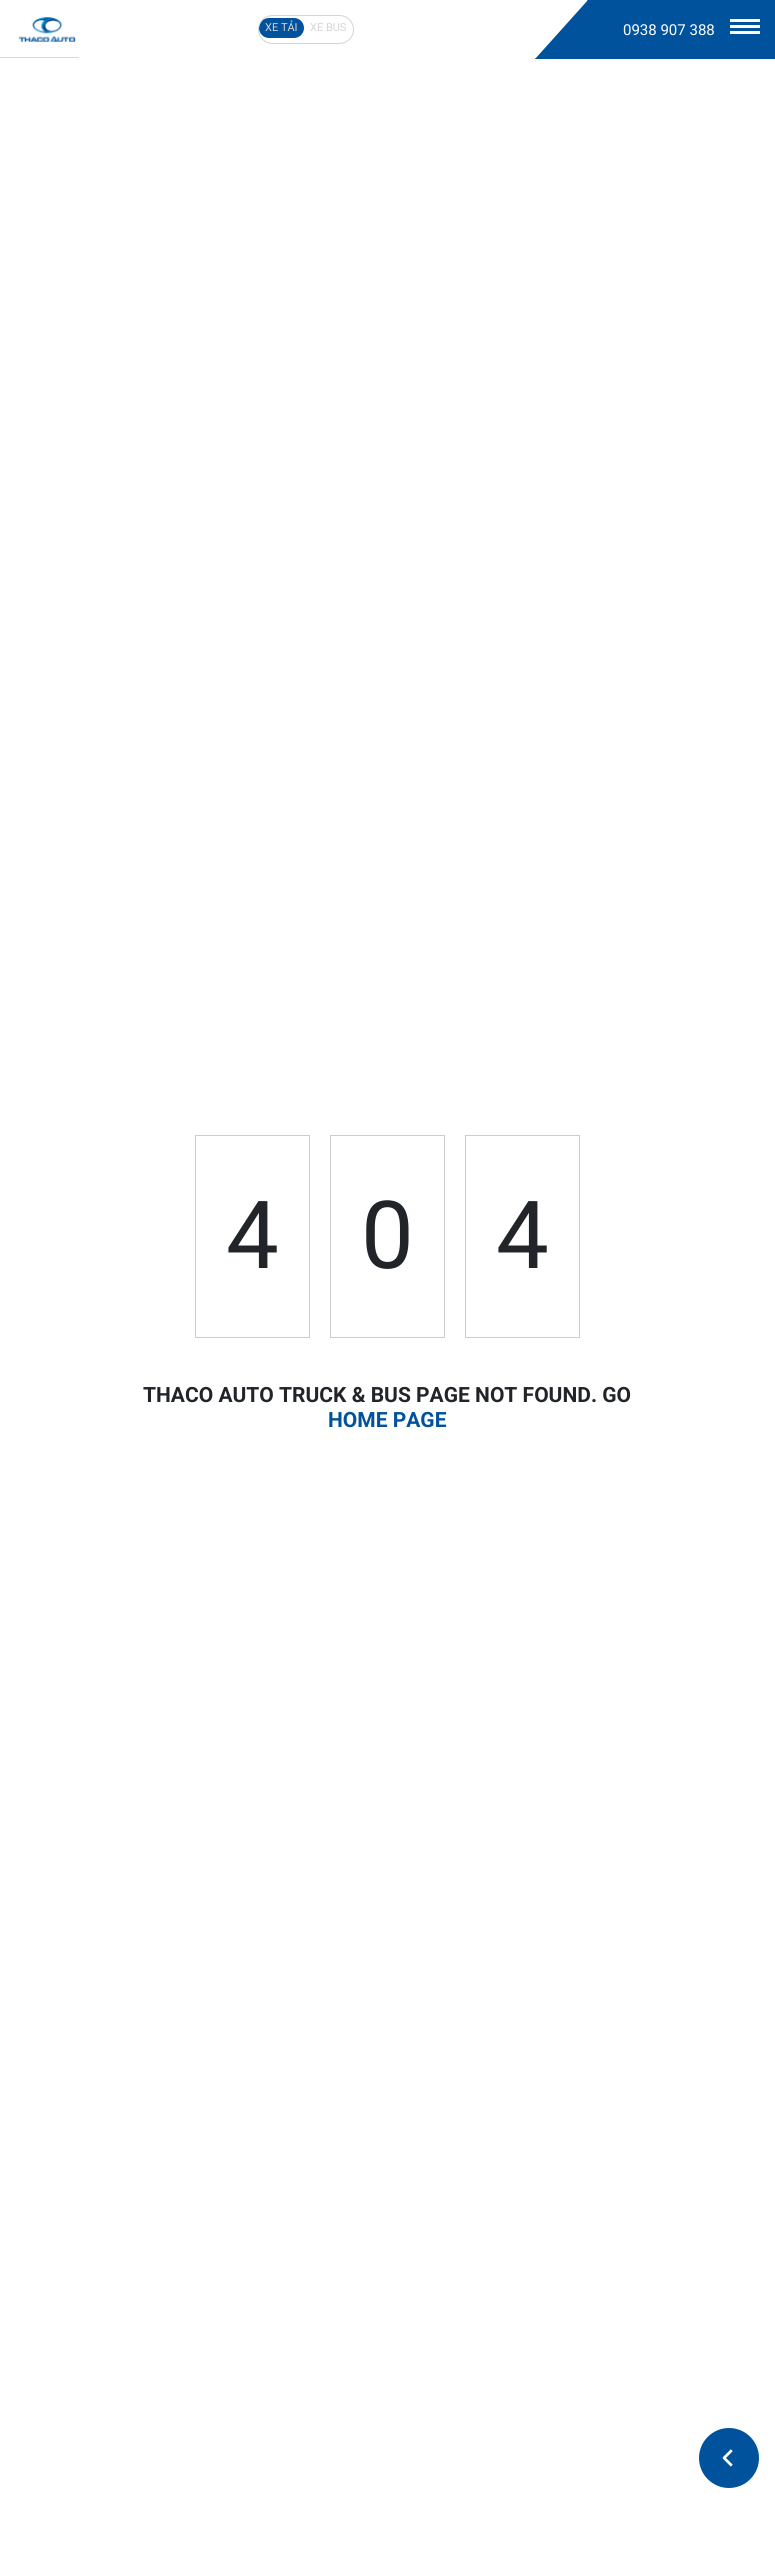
import math
import cairo


def round_path(ctx, x, y, w, h, r):
	ctx.new_sub_path()
	for i, (u, v) in enumerate([(x + w - r, y + h - r), (x + r, y + h - r), (x + r, y + r), (x + w - r, y + r)]):
		ctx.arc(u, v, r, i * math.pi / 2, (i + 1) * math.pi / 2)
	ctx.close_path()

def paste(ctx, path, x, y, w, h):
	ctx.save()
	ctx.set_source_surface(cairo.ImageSurface.create_from_png(path), x, y)
	ctx.rectangle(x, y, w, h)
	ctx.fill()
	ctx.restore()

def draw(ctx):
	ctx.set_source_rgb(1, 1, 1)
	ctx.paint()
	ctx.set_source_rgb(0.851, 0.851, 0.851)
	ctx.rectangle(0, 57, 79, 1)
	ctx.fill()
	paste(ctx, 'media/1.png', 18, 17, 58, 25)
	round_path(ctx, 258.5, 15.5, 95, 28, 14)
	ctx.set_source_rgb(0.831, 0.831, 0.831)
	ctx.set_line_width(1)
	ctx.stroke()
	ctx.save()
	round_path(ctx, 259, 16, 94, 27, 13.5)
	ctx.clip()
	ctx.set_source_rgb(0, 0.322, 0.612)
	round_path(ctx, 259, 18, 45, 20, 10)
	ctx.fill()
	ctx.restore()
	ctx.select_font_face('Roboto')
	ctx.set_font_size(11)
	ctx.set_source_rgb(0.835, 0.835, 0.835)
	ctx.move_to(265, 31)
	ctx.show_text('XE TẢI')
	ctx.move_to(310, 31)
	ctx.show_text('XE BUS')
	ctx.set_source_rgb(0, 0.322, 0.612)
	ctx.new_path()
	ctx.move_to(588, 0)
	ctx.line_to(535, 59)
	ctx.line_to(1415, 59)
	ctx.line_to(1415, 0)
	ctx.close_path()
	ctx.fill()
	ctx.new_path()
	ctx.move_to(588, 0)
	ctx.line_to(587, 1)
	ctx.line_to(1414, 1)
	ctx.line_to(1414, 58)
	ctx.line_to(536, 58)
	ctx.line_to(535, 59)
	ctx.line_to(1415, 59)
	ctx.line_to(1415, 0)
	ctx.close_path()
	ctx.fill()
	ctx.set_font_size(15)
	ctx.set_source_rgb(1, 1, 1)
	ctx.move_to(623, 35)
	ctx.show_text('0938 907 388')
	ctx.rectangle(730, 19, 30, 3)
	ctx.rectangle(730, 25, 30, 3)
	ctx.rectangle(730, 31, 30, 3)
	ctx.fill()
	ctx.rectangle(195.5, 1135.5, 114, 202)
	ctx.set_source_rgb(0.8, 0.8, 0.8)
	ctx.stroke()
	ctx.set_font_size(94)
	ctx.set_source_rgb(0.129, 0.145, 0.161)
	ctx.move_to(226, 1268)
	ctx.show_text('4')
	ctx.rectangle(330.5, 1135.5, 114, 202)
	ctx.set_source_rgb(0.8, 0.8, 0.8)
	ctx.stroke()
	ctx.set_source_rgb(0.129, 0.145, 0.161)
	ctx.move_to(361, 1268)
	ctx.show_text('0')
	ctx.rectangle(465.5, 1135.5, 114, 202)
	ctx.set_source_rgb(0.8, 0.8, 0.8)
	ctx.stroke()
	ctx.set_source_rgb(0.129, 0.145, 0.161)
	ctx.move_to(496, 1268)
	ctx.show_text('4')
	ctx.select_font_face('Roboto', cairo.FONT_SLANT_NORMAL, cairo.FONT_WEIGHT_BOLD)
	ctx.set_font_size(21)
	ctx.move_to(143, 1402)
	ctx.show_text('THACO AUTO TRUCK & BUS PAGE NOT FOUND. GO')
	ctx.set_source_rgb(0, 0.322, 0.612)
	ctx.move_to(328, 1427)
	ctx.show_text('HOME PAGE')
	ctx.new_path()
	ctx.arc(729, 2458, 30, 0, 2 * math.pi)
	ctx.fill()
	paste(ctx, 'media/2.png', 722, 2449, 11, 18)


surface = cairo.ImageSurface(cairo.FORMAT_RGB24, 775, 2568)
ctx = cairo.Context(surface)
options = cairo.FontOptions()
options.set_hint_metrics(cairo.HINT_METRICS_OFF)
options.set_hint_style(cairo.HINT_STYLE_NONE)
ctx.set_font_options(options)
ctx.set_miter_limit(4)
draw(ctx)
surface.write_to_png('image.png')
